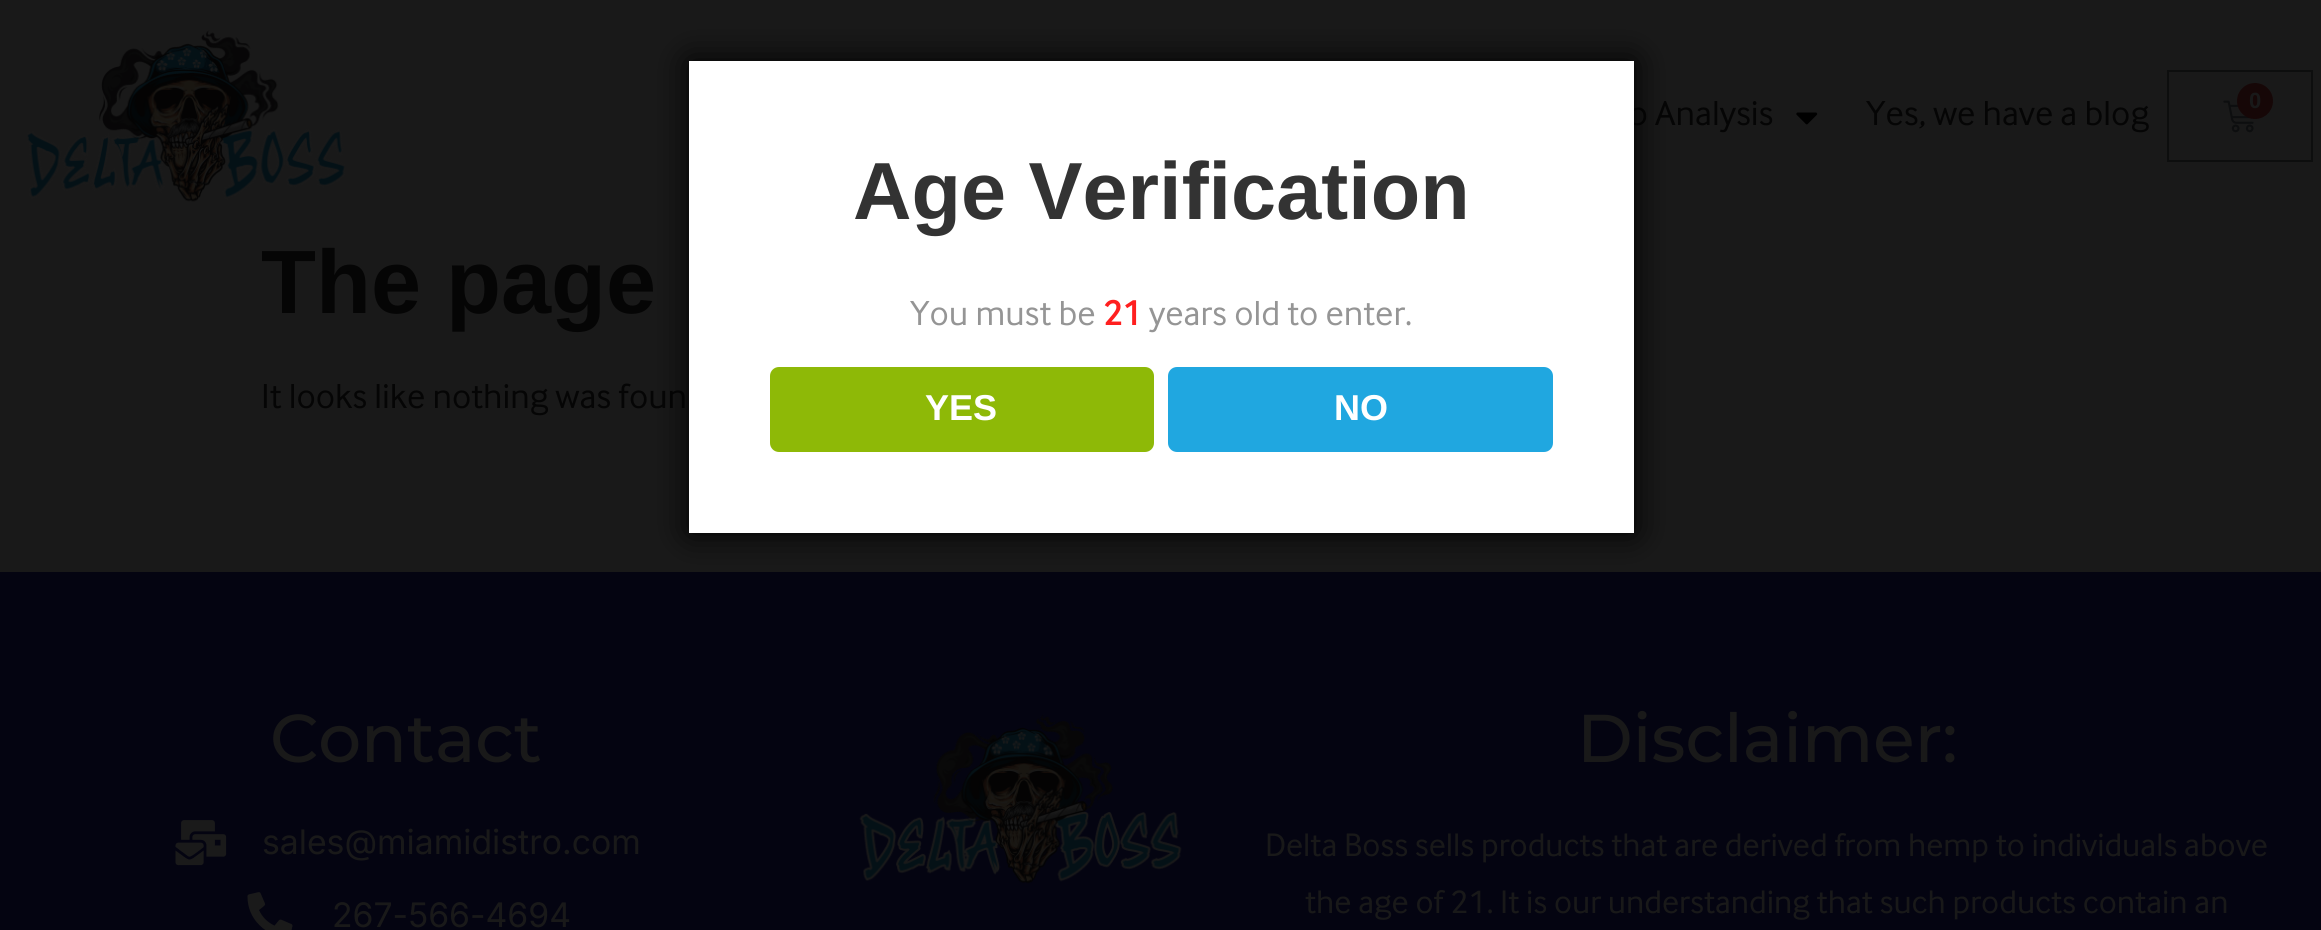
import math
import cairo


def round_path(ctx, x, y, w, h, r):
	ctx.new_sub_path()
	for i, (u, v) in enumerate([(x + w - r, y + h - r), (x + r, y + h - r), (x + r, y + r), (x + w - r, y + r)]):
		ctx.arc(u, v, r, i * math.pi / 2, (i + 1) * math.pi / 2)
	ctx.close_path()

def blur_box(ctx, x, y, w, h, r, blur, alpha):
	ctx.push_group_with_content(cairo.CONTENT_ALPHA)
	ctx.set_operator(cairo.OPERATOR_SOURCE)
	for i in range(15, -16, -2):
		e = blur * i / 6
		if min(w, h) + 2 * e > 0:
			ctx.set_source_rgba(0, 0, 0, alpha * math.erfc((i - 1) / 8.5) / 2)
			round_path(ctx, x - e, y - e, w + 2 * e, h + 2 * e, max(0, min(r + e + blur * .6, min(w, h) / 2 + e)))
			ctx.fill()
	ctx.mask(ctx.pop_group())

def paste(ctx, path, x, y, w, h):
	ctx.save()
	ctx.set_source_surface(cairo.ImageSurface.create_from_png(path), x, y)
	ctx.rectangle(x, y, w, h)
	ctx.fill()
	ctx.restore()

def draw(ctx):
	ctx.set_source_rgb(0.098, 0.098, 0.098)
	ctx.paint()
	paste(ctx, 'media/1.png', 27, 30, 318, 172)
	ctx.select_font_face('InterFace')
	ctx.set_font_size(36)
	ctx.set_source_rgb(0.02, 0.02, 0.02)
	ctx.move_to(1629, 125)
	ctx.show_text('b Analysis')
	paste(ctx, 'media/2.png', 1796, 112, 22, 13)
	ctx.move_to(1866, 125)
	ctx.show_text('Yes, we have a blog')
	ctx.rectangle(2168, 71, 144, 90)
	ctx.set_source_rgb(0.051, 0.055, 0.055)
	ctx.stroke()
	paste(ctx, 'media/3.png', 2223, 100, 31, 33)
	ctx.set_source_rgb(0.086, 0.031, 0.031)
	ctx.arc(2255, 101, 18, 0, 2 * math.pi)
	ctx.fill()
	ctx.select_font_face('Liberation Sans', cairo.FONT_SLANT_NORMAL, cairo.FONT_WEIGHT_BOLD)
	ctx.set_font_size(22)
	ctx.set_source_rgb(0.098, 0.098, 0.098)
	ctx.move_to(2249, 108)
	ctx.show_text('0')
	ctx.set_font_size(90)
	ctx.set_source_rgb(0.02, 0.02, 0.02)
	ctx.move_to(261, 313)
	ctx.show_text('The page')
	ctx.select_font_face('InterFace')
	ctx.set_font_size(36)
	ctx.move_to(261, 408)
	ctx.show_text('It looks like nothing was foun')
	ctx.set_source_rgb(0.016, 0.016, 0.067)
	ctx.rectangle(0, 572, 2321, 358)
	ctx.fill()
	ctx.set_source_rgb(0, 0, 0)
	blur_box(ctx, 689, 61, 945, 472, 0, 17, 1)
	ctx.set_source_rgb(1, 1, 1)
	ctx.rectangle(689, 61, 945, 472)
	ctx.fill()
	ctx.select_font_face('Liberation Sans', cairo.FONT_SLANT_NORMAL, cairo.FONT_WEIGHT_BOLD)
	ctx.set_font_size(81)
	ctx.set_source_rgb(0.2, 0.2, 0.2)
	ctx.move_to(853, 219)
	ctx.show_text('Age Verification')
	ctx.select_font_face('InterFace')
	ctx.set_font_size(36)
	ctx.set_source_rgb(0.584, 0.584, 0.584)
	ctx.move_to(910, 325)
	ctx.show_text('You must be')
	ctx.select_font_face('InterFace', cairo.FONT_SLANT_NORMAL, cairo.FONT_WEIGHT_BOLD)
	ctx.set_source_rgb(1, 0.122, 0.122)
	ctx.move_to(1103, 325)
	ctx.show_text('21')
	ctx.select_font_face('InterFace')
	ctx.set_source_rgb(0.584, 0.584, 0.584)
	ctx.move_to(1149, 325)
	ctx.show_text('years old to enter.')
	ctx.set_source_rgb(0.557, 0.725, 0.031)
	round_path(ctx, 770, 367, 384, 85, 9)
	ctx.fill()
	ctx.select_font_face('Liberation Sans', cairo.FONT_SLANT_NORMAL, cairo.FONT_WEIGHT_BOLD)
	ctx.set_source_rgb(1, 1, 1)
	ctx.move_to(925, 420)
	ctx.show_text('YES')
	ctx.set_source_rgb(0.125, 0.655, 0.878)
	round_path(ctx, 1168, 367, 385, 85, 9)
	ctx.fill()
	ctx.set_source_rgb(1, 1, 1)
	ctx.move_to(1334, 420)
	ctx.show_text('NO')
	ctx.select_font_face('Montserrat Medium')
	ctx.set_font_size(67.5)
	ctx.set_source_rgb(0.098, 0.098, 0.098)
	ctx.move_to(270, 762)
	ctx.show_text('Contact')
	paste(ctx, 'media/4.png', 175, 820, 52, 46)
	ctx.select_font_face('Inter')
	ctx.set_font_size(33.75)
	ctx.move_to(262, 854)
	ctx.show_text('sales@miamidistro.com')
	paste(ctx, 'media/5.png', 247, 892, 46, 38)
	ctx.move_to(332, 927)
	ctx.show_text('267-566-4694')
	paste(ctx, 'media/6.png', 859, 714, 323, 170)
	ctx.select_font_face('Montserrat Medium')
	ctx.set_font_size(67.5)
	ctx.move_to(1577, 762)
	ctx.show_text('Disclaimer:')
	ctx.select_font_face('InterFace')
	ctx.set_font_size(33.75)
	ctx.move_to(1265, 856)
	ctx.show_text('Delta Boss sells products that are derived from hemp to individuals above')
	ctx.move_to(1305, 913)
	ctx.show_text('the age of 21. It is our understanding that such products contain an')


surface = cairo.ImageSurface(cairo.FORMAT_RGB24, 2321, 930)
ctx = cairo.Context(surface)
options = cairo.FontOptions()
options.set_hint_metrics(cairo.HINT_METRICS_OFF)
options.set_hint_style(cairo.HINT_STYLE_NONE)
ctx.set_font_options(options)
ctx.set_miter_limit(4)
draw(ctx)
surface.write_to_png('image.png')
